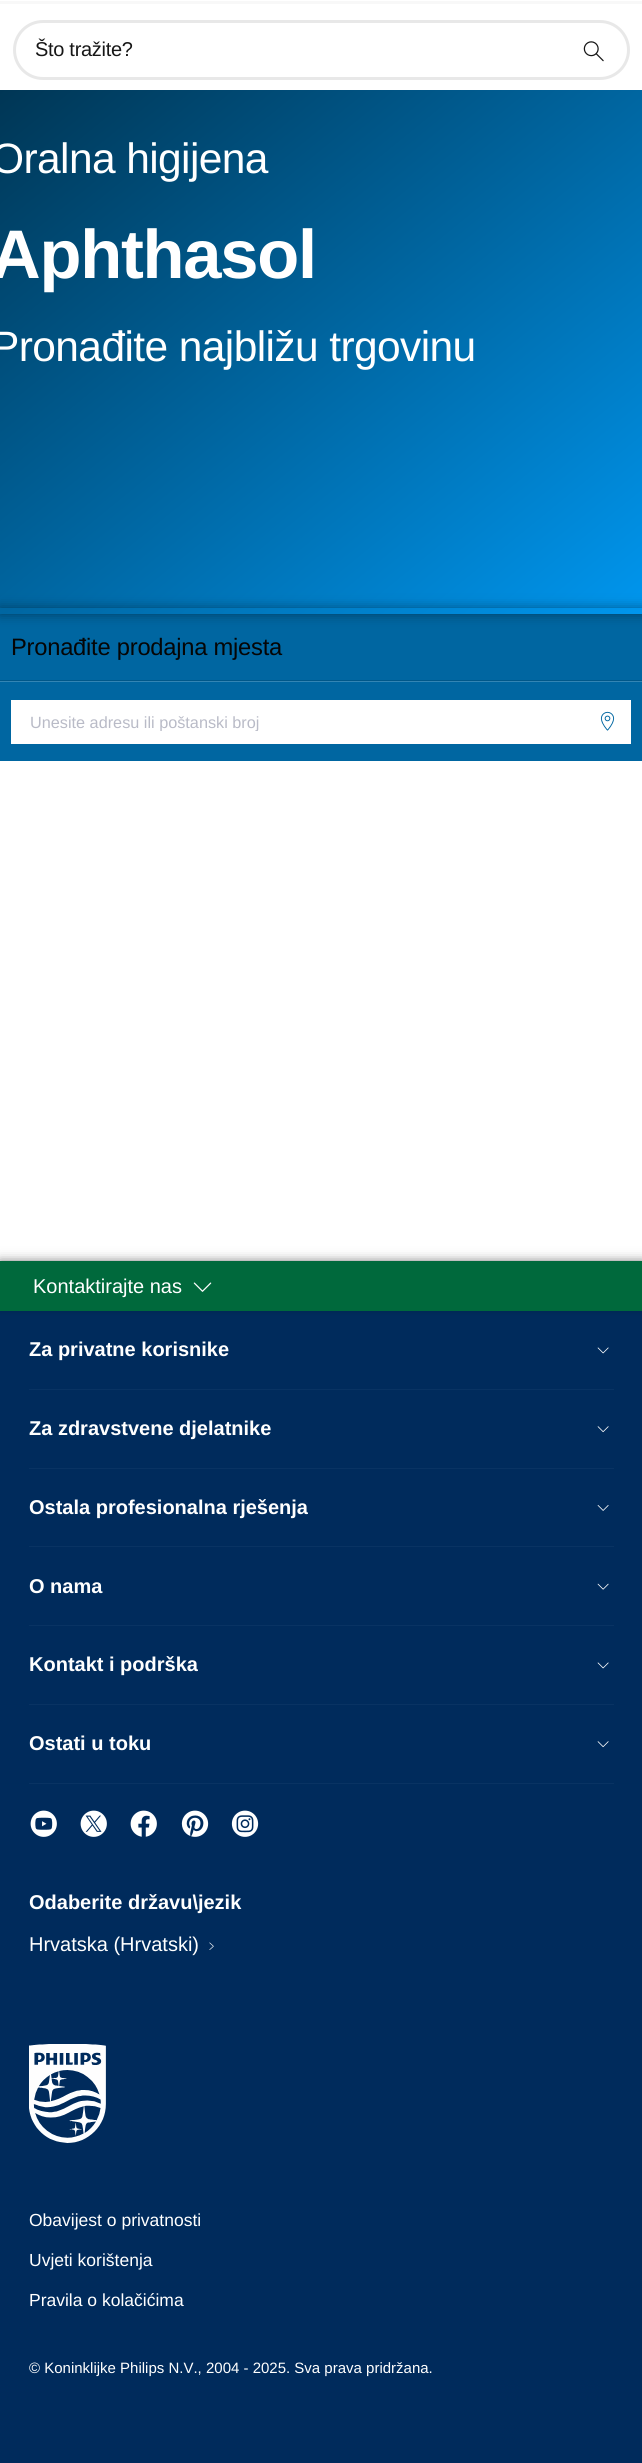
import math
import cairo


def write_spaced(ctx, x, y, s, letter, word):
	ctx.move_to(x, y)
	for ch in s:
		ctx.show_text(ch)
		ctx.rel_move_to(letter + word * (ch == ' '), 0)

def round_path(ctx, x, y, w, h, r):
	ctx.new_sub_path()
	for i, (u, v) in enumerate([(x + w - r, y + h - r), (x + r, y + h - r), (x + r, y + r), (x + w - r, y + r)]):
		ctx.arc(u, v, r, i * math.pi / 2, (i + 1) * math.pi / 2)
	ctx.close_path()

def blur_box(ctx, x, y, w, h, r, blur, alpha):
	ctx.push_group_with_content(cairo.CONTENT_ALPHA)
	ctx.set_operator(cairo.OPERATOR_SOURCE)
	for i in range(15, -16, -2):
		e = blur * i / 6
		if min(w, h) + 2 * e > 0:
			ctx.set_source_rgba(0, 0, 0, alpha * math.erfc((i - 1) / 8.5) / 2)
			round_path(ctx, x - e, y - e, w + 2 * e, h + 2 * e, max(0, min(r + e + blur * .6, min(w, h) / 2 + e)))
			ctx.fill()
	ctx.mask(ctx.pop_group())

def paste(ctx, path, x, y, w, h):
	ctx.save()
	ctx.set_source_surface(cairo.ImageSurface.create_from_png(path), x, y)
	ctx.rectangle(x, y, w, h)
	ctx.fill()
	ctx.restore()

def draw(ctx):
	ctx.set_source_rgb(1, 1, 1)
	ctx.paint()
	ctx.set_source_rgb(0.969, 0.969, 0.969)
	ctx.rectangle(0, 1, 642, 3)
	ctx.fill()
	round_path(ctx, 14.5, 21.5, 614, 57, 28.5)
	ctx.set_source_rgb(0.91, 0.91, 0.91)
	ctx.set_line_width(3)
	ctx.stroke()
	ctx.select_font_face('Liberation Sans')
	ctx.set_font_size(20)
	ctx.set_source_rgb(0.09, 0.09, 0.09)
	write_spaced(ctx, 35, 56, 'Što tražite?', -0.3, 0)
	paste(ctx, 'media/1.png', 583, 41, 21, 21)
	gradient = cairo.LinearGradient(65, 37, 578, 667)
	gradient.add_color_stop_rgba(0, 0, 0.212, 0.333, 1)
	gradient.add_color_stop_rgba(0.5, 0, 0.4, 0.631, 1)
	gradient.add_color_stop_rgba(1, 0, 0.588, 0.933, 1)
	ctx.set_source(gradient)
	ctx.rectangle(0, 90, 642, 524)
	ctx.fill()
	ctx.set_font_size(42.5)
	ctx.set_source_rgb(1, 1, 1)
	write_spaced(ctx, -9, 173, 'Oralna higijena', -0.6, 0)
	ctx.select_font_face('Liberation Sans', cairo.FONT_SLANT_NORMAL, cairo.FONT_WEIGHT_BOLD)
	ctx.set_font_size(68.75)
	write_spaced(ctx, -9, 278, 'Aphthasol', -1.25, 0)
	ctx.select_font_face('Liberation Sans')
	ctx.set_font_size(42.5)
	write_spaced(ctx, -9, 361, 'Pronađite najbližu trgovinu', -0.6, 0)
	ctx.set_source_rgb(0, 0.4, 0.631)
	ctx.rectangle(0, 614, 642, 147)
	ctx.fill()
	ctx.save()
	ctx.set_fill_rule(cairo.FILL_RULE_EVEN_ODD)
	ctx.new_path()
	ctx.move_to(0, 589)
	ctx.line_to(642, 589)
	ctx.line_to(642, 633)
	ctx.line_to(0, 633)
	ctx.close_path()
	ctx.move_to(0, 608)
	ctx.line_to(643, 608)
	ctx.line_to(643, 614)
	ctx.line_to(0, 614)
	ctx.close_path()
	ctx.clip()
	ctx.set_source_rgb(0, 0, 0)
	blur_box(ctx, 0, 608, 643, 6, 0, 6, 0.4)
	ctx.restore()
	ctx.set_source_rgb(0, 0, 0)
	blur_box(ctx, 0, 1261, 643, 7, 0, 6, 0.4)
	ctx.set_source_rgb(0, 0.341, 0.537)
	ctx.rectangle(0, 680, 642, 1)
	ctx.fill()
	ctx.set_font_size(23.75)
	ctx.set_source_rgb(0.02, 0.02, 0.02)
	write_spaced(ctx, 11, 655, 'Pronađite prodajna mjesta', -0.25, 0)
	ctx.set_source_rgb(0.2, 0.522, 0.706)
	ctx.rectangle(0, 681, 642, 1)
	ctx.fill()
	ctx.set_source_rgb(1, 1, 1)
	ctx.rectangle(11, 700, 620, 44)
	ctx.fill()
	ctx.save()
	ctx.rectangle(30, 713, 495, 18)
	ctx.clip()
	ctx.set_font_size(16.25)
	ctx.set_source_rgb(0.725, 0.733, 0.78)
	ctx.move_to(30, 728)
	ctx.show_text('Unesite adresu ili poštanski broj')
	ctx.restore()
	paste(ctx, 'media/2.png', 600, 711, 15, 20)
	ctx.set_source_rgb(0, 0.169, 0.361)
	ctx.rectangle(0, 1311, 642, 1152)
	ctx.fill()
	ctx.set_source_rgb(0, 0, 0)
	blur_box(ctx, 0, 1261, 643, 50, 0, 3, 0.15)
	ctx.set_source_rgb(0, 0.412, 0.235)
	ctx.rectangle(0, 1261, 642, 50)
	ctx.fill()
	ctx.set_font_size(20)
	ctx.set_source_rgb(1, 1, 1)
	ctx.move_to(33, 1293)
	ctx.show_text('Kontaktirajte nas')
	paste(ctx, 'media/3.png', 193, 1282, 19, 10)
	ctx.set_source_rgb(0.039, 0.2, 0.388)
	ctx.rectangle(29, 1389, 585, 1)
	ctx.fill()
	ctx.select_font_face('Liberation Sans', cairo.FONT_SLANT_NORMAL, cairo.FONT_WEIGHT_BOLD)
	ctx.set_source_rgb(1, 1, 1)
	ctx.move_to(29, 1356)
	ctx.show_text('Za privatne korisnike')
	paste(ctx, 'media/4.png', 597, 1347, 12, 7)
	ctx.set_source_rgb(0.039, 0.2, 0.388)
	ctx.rectangle(29, 1468, 585, 1)
	ctx.fill()
	ctx.set_source_rgb(1, 1, 1)
	ctx.move_to(29, 1435)
	ctx.show_text('Za zdravstvene djelatnike')
	paste(ctx, 'media/5.png', 597, 1426, 12, 7)
	ctx.set_source_rgb(0.039, 0.2, 0.388)
	ctx.rectangle(29, 1546, 585, 1)
	ctx.fill()
	ctx.set_source_rgb(1, 1, 1)
	ctx.move_to(29, 1514)
	ctx.show_text('Ostala profesionalna rješenja')
	paste(ctx, 'media/6.png', 597, 1505, 12, 6)
	ctx.set_source_rgb(0.039, 0.2, 0.388)
	ctx.rectangle(29, 1625, 585, 1)
	ctx.fill()
	ctx.set_source_rgb(1, 1, 1)
	ctx.move_to(29, 1593)
	ctx.show_text('O nama')
	paste(ctx, 'media/7.png', 597, 1583, 12, 7)
	ctx.set_source_rgb(0.039, 0.2, 0.388)
	ctx.rectangle(29, 1704, 585, 1)
	ctx.fill()
	ctx.set_source_rgb(1, 1, 1)
	ctx.move_to(29, 1671)
	ctx.show_text('Kontakt i podrška')
	paste(ctx, 'media/4.png', 597, 1662, 12, 7)
	ctx.set_source_rgb(0.039, 0.2, 0.388)
	ctx.rectangle(29, 1783, 585, 1)
	ctx.fill()
	ctx.set_source_rgb(1, 1, 1)
	ctx.move_to(29, 1750)
	ctx.show_text('Ostati u toku')
	paste(ctx, 'media/5.png', 597, 1741, 12, 7)
	paste(ctx, 'media/8.png', 30, 1810, 27, 27)
	paste(ctx, 'media/9.png', 80, 1810, 27, 27)
	paste(ctx, 'media/10.png', 130, 1810, 27, 27)
	paste(ctx, 'media/11.png', 181, 1810, 28, 27)
	paste(ctx, 'media/12.png', 231, 1810, 28, 27)
	ctx.move_to(29, 1909)
	ctx.show_text('Odaberite državu\\jezik')
	ctx.select_font_face('Liberation Sans')
	ctx.move_to(29, 1951)
	ctx.show_text('Hrvatska (Hrvatski)')
	paste(ctx, 'media/13.png', 209, 1942, 5, 8)
	paste(ctx, 'media/14.png', 29, 2044, 77, 99)
	ctx.set_font_size(17.5)
	for x, y, s in [
		(29, 2226, 'Obavijest o privatnosti'),
		(29, 2266, 'Uvjeti korištenja'),
		(29, 2306, 'Pravila o kolačićima'),
	]:
		ctx.move_to(x, y)
		ctx.show_text(s)
	ctx.set_font_size(15)
	ctx.move_to(29, 2373)
	ctx.show_text('© Koninklijke Philips N.V., 2004 - 2025. Sva prava pridržana.')


surface = cairo.ImageSurface(cairo.FORMAT_RGB24, 642, 2463)
ctx = cairo.Context(surface)
options = cairo.FontOptions()
options.set_hint_metrics(cairo.HINT_METRICS_OFF)
options.set_hint_style(cairo.HINT_STYLE_NONE)
ctx.set_font_options(options)
ctx.set_miter_limit(4)
draw(ctx)
surface.write_to_png('image.png')
